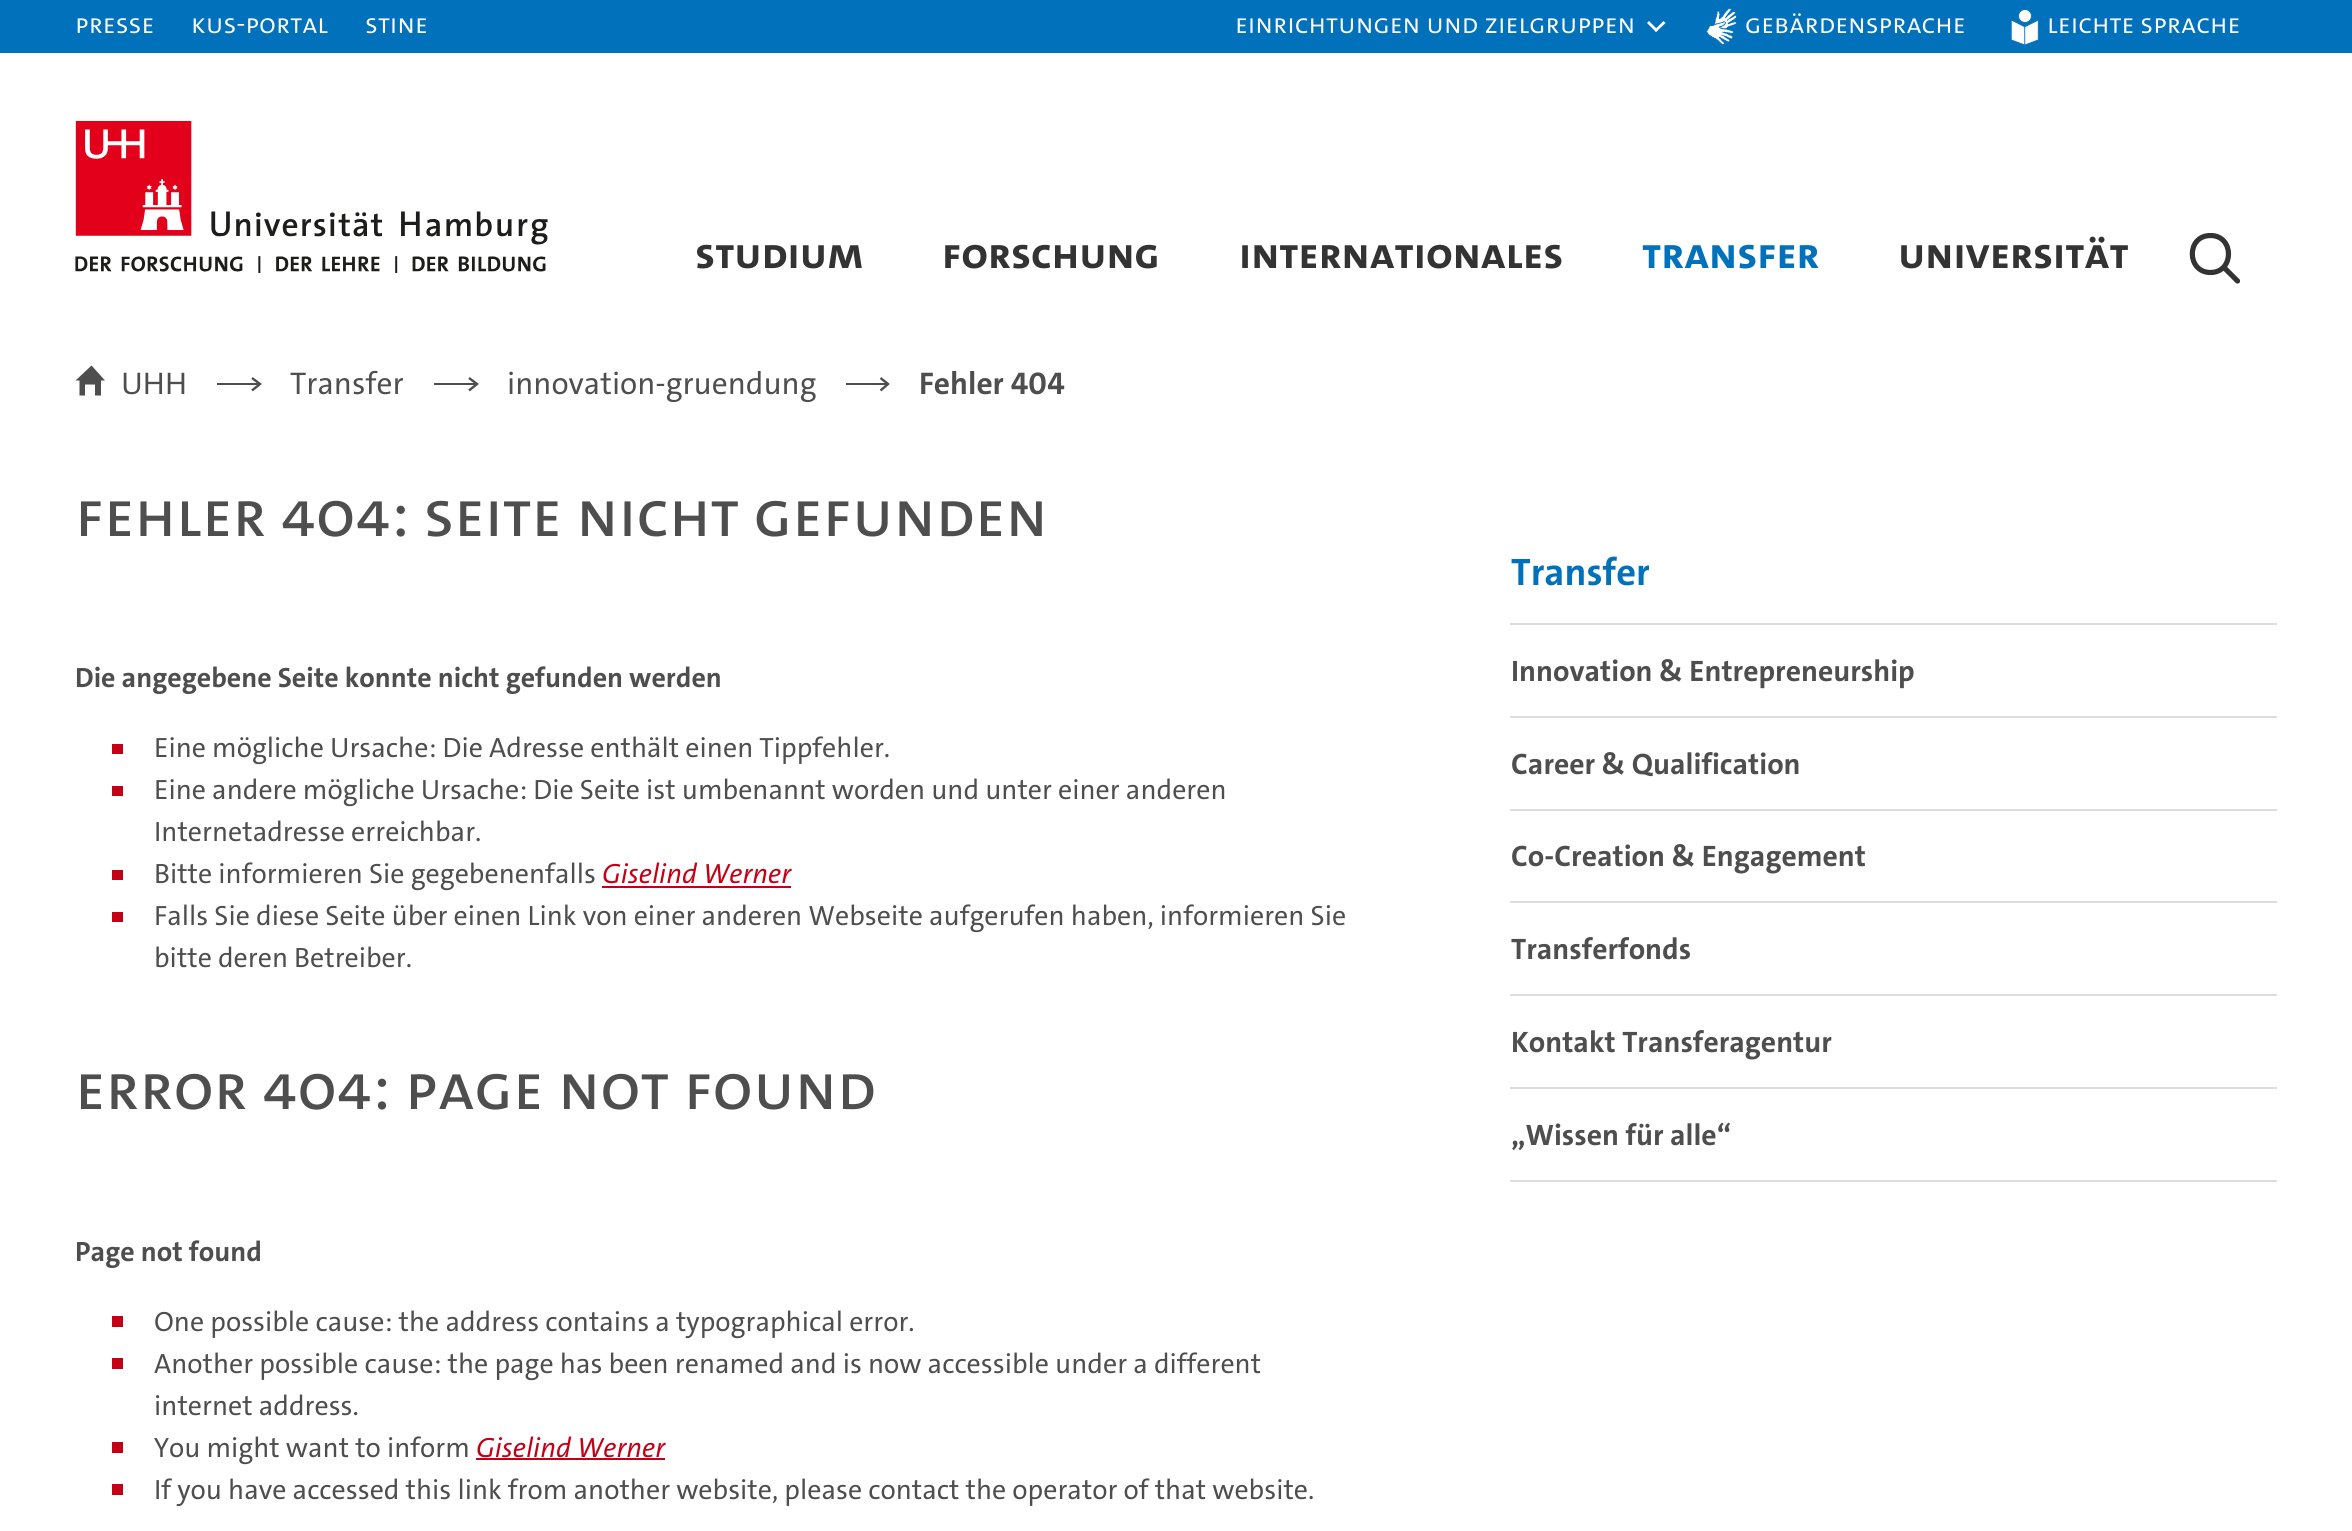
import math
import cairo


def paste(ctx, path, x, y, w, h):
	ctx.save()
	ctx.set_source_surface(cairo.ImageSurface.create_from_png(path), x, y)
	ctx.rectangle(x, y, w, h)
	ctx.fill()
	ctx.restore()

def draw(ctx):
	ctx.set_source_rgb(1, 1, 1)
	ctx.paint()
	ctx.set_source_rgb(0.008, 0.443, 0.733)
	ctx.rectangle(0, 0, 2352, 53)
	ctx.fill()
	ctx.select_font_face('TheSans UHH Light')
	ctx.set_font_size(28)
	ctx.set_source_rgb(1, 1, 1)
	for x, y, s in [
		(75, 33, 'Presse'),
		(191, 33, 'KUS-Portal'),
		(365, 33, 'STiNE'),
		(1235, 33, 'Einrichtungen und Zielgruppen'),
	]:
		ctx.move_to(x, y)
		ctx.show_text(s)
	ctx.new_path()
	ctx.move_to(1663.5, 21)
	ctx.line_to(1665.5, 23)
	ctx.line_to(1656, 32)
	ctx.line_to(1654.5, 30)
	ctx.close_path()
	ctx.fill()
	ctx.new_path()
	ctx.move_to(1649, 21)
	ctx.line_to(1658, 30)
	ctx.line_to(1656, 32)
	ctx.line_to(1647, 23)
	ctx.close_path()
	ctx.fill()
	paste(ctx, 'media/1.png', 1706, 8, 31, 37)
	ctx.move_to(1745, 33)
	ctx.show_text('Gebärdensprache')
	paste(ctx, 'media/2.png', 2011, 9, 28, 36)
	ctx.move_to(2047, 33)
	ctx.show_text('Leichte Sprache')
	paste(ctx, 'media/3.png', 75, 121, 473, 152)
	ctx.select_font_face('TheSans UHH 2', cairo.FONT_SLANT_NORMAL, cairo.FONT_WEIGHT_BOLD)
	ctx.set_font_size(43.75)
	ctx.set_source_rgb(0.2, 0.2, 0.2)
	for x, y, s in [
		(695, 268, 'STUDIUM'),
		(942, 268, 'FORSCHUNG'),
		(1239, 268, 'INTERNATIONALES'),
	]:
		ctx.move_to(x, y)
		ctx.show_text(s)
	ctx.set_source_rgb(0.008, 0.443, 0.733)
	ctx.move_to(1642, 268)
	ctx.show_text('TRANSFER')
	ctx.set_source_rgb(0.2, 0.2, 0.2)
	ctx.move_to(1898, 268)
	ctx.show_text('UNIVERSITÄT')
	ctx.save()
	ctx.rectangle(2189, 233, 51, 51)
	ctx.clip()
	ctx.new_path()
	ctx.move_to(2210.5, 272.5)
	ctx.curve_to(2234.5, 272.5, 2234.5, 235.5, 2210.5, 235.5)
	ctx.curve_to(2186, 235.5, 2186.5, 272.5, 2210.5, 272.5)
	ctx.close_path()
	ctx.move_to(2224, 267.5)
	ctx.line_to(2237.5, 281)
	ctx.set_line_width(5.2)
	ctx.set_line_cap(cairo.LINE_CAP_ROUND)
	ctx.stroke()
	ctx.restore()
	ctx.set_source_rgb(0.306, 0.306, 0.306)
	ctx.set_fill_rule(cairo.FILL_RULE_EVEN_ODD)
	ctx.new_path()
	ctx.move_to(79.5, 395.5)
	ctx.line_to(85, 395.5)
	ctx.line_to(85, 384.5)
	ctx.line_to(95, 384.5)
	ctx.line_to(95, 395.5)
	ctx.line_to(101, 395.5)
	ctx.line_to(101, 380.5)
	ctx.line_to(105, 380.5)
	ctx.line_to(91.5, 365.5)
	ctx.line_to(75.5, 380.5)
	ctx.line_to(79.5, 380.5)
	ctx.close_path()
	ctx.fill()
	ctx.select_font_face('TheSans UHH')
	ctx.set_font_size(31.5)
	ctx.move_to(121, 394)
	ctx.show_text('UHH')
	ctx.rectangle(217, 383, 42, 2)
	ctx.fill()
	ctx.new_path()
	ctx.move_to(252, 378)
	ctx.line_to(260, 384)
	ctx.line_to(252, 390.5)
	ctx.set_line_width(2.4)
	ctx.stroke()
	ctx.move_to(290, 394)
	ctx.show_text('Transfer')
	ctx.rectangle(434, 383, 42, 2)
	ctx.fill()
	ctx.new_path()
	ctx.move_to(469, 378)
	ctx.line_to(477, 384)
	ctx.line_to(469, 390.5)
	ctx.stroke()
	ctx.move_to(507, 394)
	ctx.show_text('innovation-gruendung')
	ctx.rectangle(846, 383, 41, 2)
	ctx.fill()
	ctx.new_path()
	ctx.move_to(880.5, 378)
	ctx.line_to(888, 384)
	ctx.line_to(880.5, 390.5)
	ctx.stroke()
	ctx.select_font_face('TheSans UHH', cairo.FONT_SLANT_NORMAL, cairo.FONT_WEIGHT_BOLD)
	ctx.move_to(919, 394)
	ctx.show_text('Fehler 404')
	ctx.select_font_face('TheSans UHH 2')
	ctx.set_font_size(66.5)
	ctx.move_to(75, 536)
	ctx.show_text('Fehler 404: Seite nicht gefunden')
	ctx.select_font_face('TheSans UHH', cairo.FONT_SLANT_NORMAL, cairo.FONT_WEIGHT_BOLD)
	ctx.set_font_size(28)
	ctx.move_to(75, 687)
	ctx.show_text('Die angegebene Seite konnte nicht gefunden werden')
	ctx.set_source_rgb(0.769, 0, 0.09)
	ctx.rectangle(112, 744, 11, 10)
	ctx.fill()
	ctx.select_font_face('TheSans UHH')
	ctx.set_source_rgb(0.306, 0.306, 0.306)
	ctx.move_to(154, 757)
	ctx.show_text('Eine mögliche Ursache: Die Adresse enthält einen Tippfehler.')
	ctx.set_source_rgb(0.769, 0, 0.09)
	ctx.rectangle(112, 786, 11, 10)
	ctx.fill()
	ctx.set_source_rgb(0.306, 0.306, 0.306)
	ctx.move_to(154, 799)
	ctx.show_text('Eine andere mögliche Ursache: Die Seite ist umbenannt worden und unter einer anderen')
	ctx.move_to(154, 841)
	ctx.show_text('Internetadresse erreichbar.')
	ctx.set_source_rgb(0.769, 0, 0.09)
	ctx.rectangle(112, 870, 11, 10)
	ctx.fill()
	ctx.set_source_rgb(0.306, 0.306, 0.306)
	ctx.move_to(154, 883)
	ctx.show_text('Bitte informieren Sie gegebenenfalls')
	ctx.select_font_face('TheSans UHH', cairo.FONT_SLANT_ITALIC)
	ctx.set_source_rgb(0.769, 0, 0.09)
	ctx.move_to(602, 883)
	ctx.show_text('Giselind Werner')
	ctx.rectangle(602, 886, 189, 2)
	ctx.fill()
	ctx.rectangle(112, 912, 11, 10)
	ctx.fill()
	ctx.select_font_face('TheSans UHH')
	ctx.set_source_rgb(0.306, 0.306, 0.306)
	ctx.move_to(154, 925)
	ctx.show_text('Falls Sie diese Seite über einen Link von einer anderen Webseite aufgerufen haben, informieren Sie')
	ctx.move_to(154, 967)
	ctx.show_text('bitte deren Betreiber.')
	ctx.select_font_face('TheSans UHH 2')
	ctx.set_font_size(66.5)
	ctx.move_to(75, 1109)
	ctx.show_text('Error 404: page not found')
	ctx.select_font_face('TheSans UHH', cairo.FONT_SLANT_NORMAL, cairo.FONT_WEIGHT_BOLD)
	ctx.set_font_size(28)
	ctx.move_to(75, 1261)
	ctx.show_text('Page not found')
	ctx.set_source_rgb(0.769, 0, 0.09)
	ctx.rectangle(112, 1316, 11, 11)
	ctx.fill()
	ctx.select_font_face('TheSans UHH')
	ctx.set_source_rgb(0.306, 0.306, 0.306)
	ctx.move_to(154, 1331)
	ctx.show_text('One possible cause: the address contains a typographical error.')
	ctx.set_source_rgb(0.769, 0, 0.09)
	ctx.rectangle(112, 1358, 11, 11)
	ctx.fill()
	ctx.set_source_rgb(0.306, 0.306, 0.306)
	ctx.move_to(154, 1373)
	ctx.show_text('Another possible cause: the page has been renamed and is now accessible under a different')
	ctx.move_to(154, 1415)
	ctx.show_text('internet address.')
	ctx.set_source_rgb(0.769, 0, 0.09)
	ctx.rectangle(112, 1442, 11, 11)
	ctx.fill()
	ctx.set_source_rgb(0.306, 0.306, 0.306)
	ctx.move_to(154, 1457)
	ctx.show_text('You might want to inform')
	ctx.select_font_face('TheSans UHH', cairo.FONT_SLANT_ITALIC)
	ctx.set_source_rgb(0.769, 0, 0.09)
	ctx.move_to(476, 1457)
	ctx.show_text('Giselind Werner')
	ctx.rectangle(476, 1458, 189, 2)
	ctx.fill()
	ctx.rectangle(112, 1484, 11, 11)
	ctx.fill()
	ctx.select_font_face('TheSans UHH')
	ctx.set_source_rgb(0.306, 0.306, 0.306)
	ctx.move_to(154, 1499)
	ctx.show_text('If you have accessed this link from another website, please contact the operator of that website.')
	ctx.set_source_rgb(0.867, 0.867, 0.867)
	ctx.rectangle(1510, 623, 767, 2)
	ctx.fill()
	ctx.select_font_face('TheSans UHH', cairo.FONT_SLANT_NORMAL, cairo.FONT_WEIGHT_BOLD)
	ctx.set_font_size(38.5)
	ctx.set_source_rgb(0.008, 0.443, 0.733)
	ctx.move_to(1511, 585)
	ctx.show_text('Transfer')
	ctx.set_source_rgb(0.867, 0.867, 0.867)
	ctx.rectangle(1510, 716, 767, 2)
	ctx.fill()
	ctx.set_font_size(29.75)
	ctx.set_source_rgb(0.306, 0.306, 0.306)
	ctx.move_to(1511, 681)
	ctx.show_text('Innovation & Entrepreneurship')
	ctx.set_source_rgb(0.867, 0.867, 0.867)
	ctx.rectangle(1510, 809, 767, 2)
	ctx.fill()
	ctx.set_source_rgb(0.306, 0.306, 0.306)
	ctx.move_to(1511, 774)
	ctx.show_text('Career & Qualification')
	ctx.set_source_rgb(0.867, 0.867, 0.867)
	ctx.rectangle(1510, 901, 767, 2)
	ctx.fill()
	ctx.set_source_rgb(0.306, 0.306, 0.306)
	ctx.move_to(1511, 866)
	ctx.show_text('Co-Creation & Engagement')
	ctx.set_source_rgb(0.867, 0.867, 0.867)
	ctx.rectangle(1510, 994, 767, 2)
	ctx.fill()
	ctx.set_source_rgb(0.306, 0.306, 0.306)
	ctx.move_to(1511, 959)
	ctx.show_text('Transferfonds')
	ctx.set_source_rgb(0.867, 0.867, 0.867)
	ctx.rectangle(1510, 1087, 767, 2)
	ctx.fill()
	ctx.set_source_rgb(0.306, 0.306, 0.306)
	ctx.move_to(1511, 1052)
	ctx.show_text('Kontakt Transferagentur')
	ctx.set_source_rgb(0.867, 0.867, 0.867)
	ctx.rectangle(1510, 1180, 767, 2)
	ctx.fill()
	ctx.set_source_rgb(0.306, 0.306, 0.306)
	ctx.move_to(1511, 1145)
	ctx.show_text('„Wissen für alle“')


surface = cairo.ImageSurface(cairo.FORMAT_RGB24, 2352, 1531)
ctx = cairo.Context(surface)
options = cairo.FontOptions()
options.set_hint_metrics(cairo.HINT_METRICS_OFF)
options.set_hint_style(cairo.HINT_STYLE_NONE)
ctx.set_font_options(options)
ctx.set_miter_limit(4)
draw(ctx)
surface.write_to_png('image.png')
